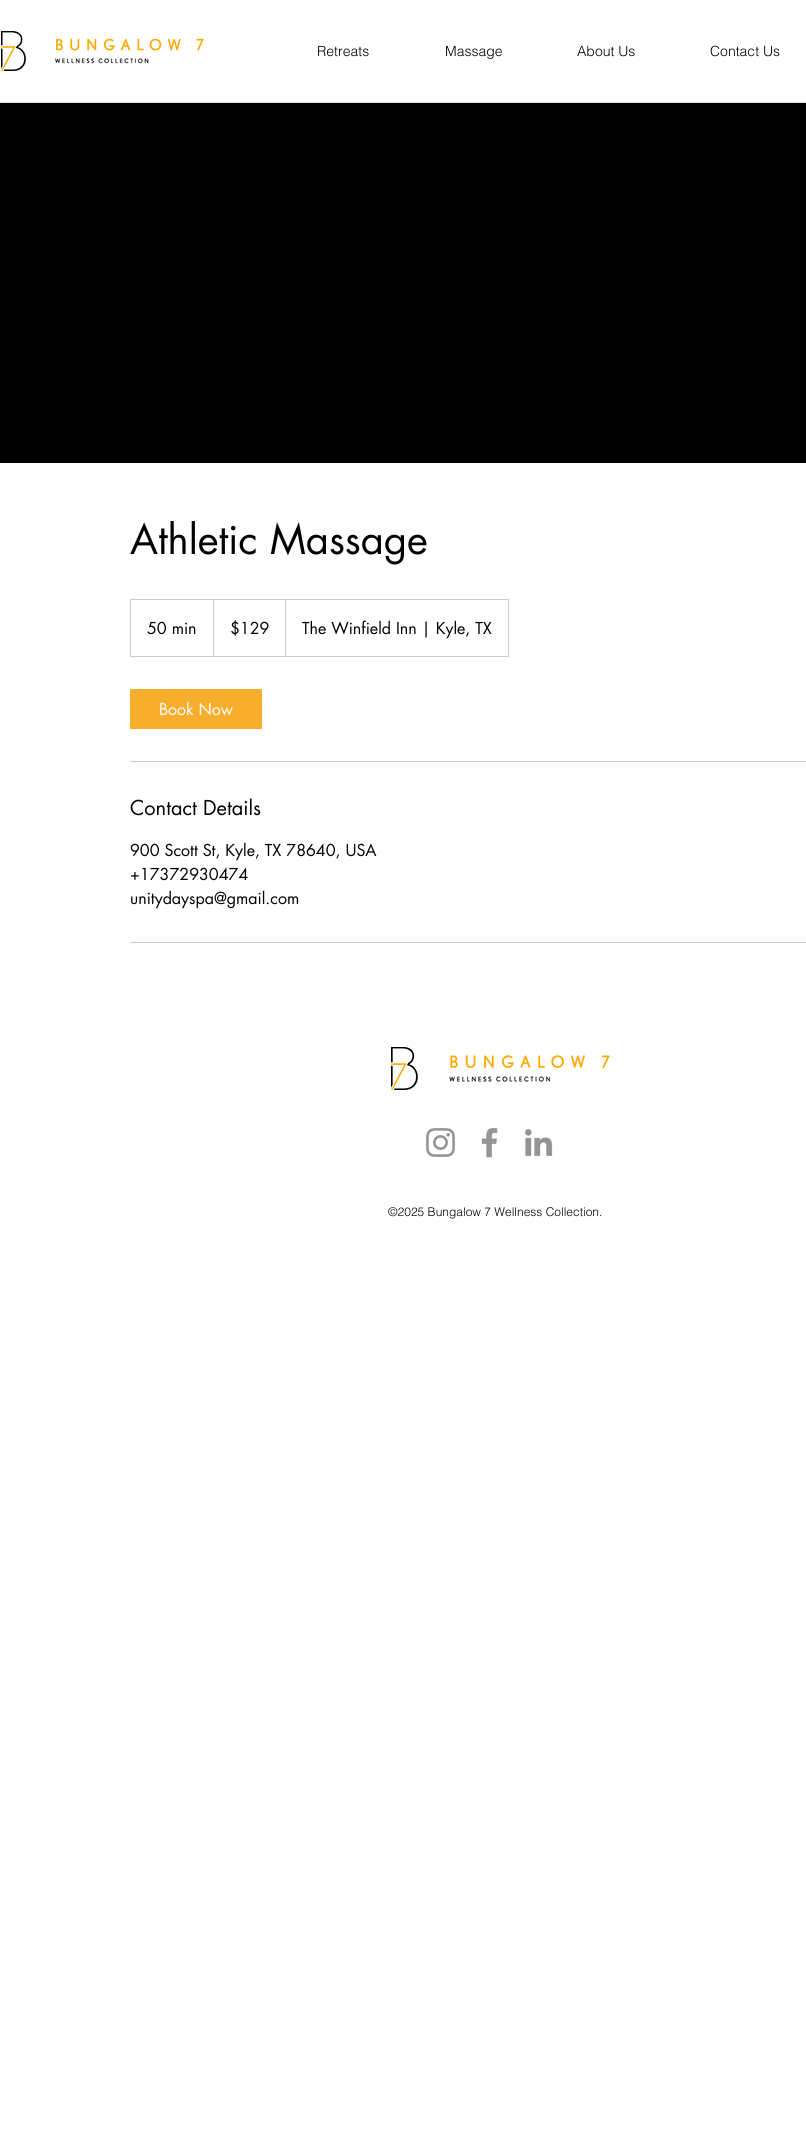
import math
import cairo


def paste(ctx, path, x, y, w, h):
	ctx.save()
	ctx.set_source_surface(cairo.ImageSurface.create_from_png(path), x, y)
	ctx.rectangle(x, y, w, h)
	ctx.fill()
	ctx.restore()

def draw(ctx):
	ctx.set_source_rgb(1, 1, 1)
	ctx.paint()
	paste(ctx, 'media/1.png', 1, 31, 203, 40)
	ctx.select_font_face('helvetica Light')
	ctx.set_font_size(14)
	ctx.set_source_rgb(0, 0, 0)
	for x, y, s in [
		(317, 56, 'Retreats'),
		(445, 56, 'Massage'),
		(577, 56, 'About Us'),
		(710, 56, 'Contact Us'),
	]:
		ctx.move_to(x, y)
		ctx.show_text(s)
	ctx.set_source_rgb(0.871, 0.871, 0.871)
	ctx.rectangle(0, 102, 806, 1)
	ctx.fill()
	ctx.set_source_rgb(0, 0, 0)
	ctx.rectangle(0, 103, 806, 360)
	ctx.fill()
	ctx.select_font_face('futura')
	ctx.set_font_size(40)
	ctx.move_to(130, 554)
	ctx.show_text('Athletic Massage')
	ctx.rectangle(130.5, 599.5, 378, 57)
	ctx.set_source_rgb(0.8, 0.8, 0.8)
	ctx.set_line_width(1)
	ctx.stroke()
	ctx.set_font_size(16)
	ctx.set_source_rgb(0, 0, 0)
	ctx.move_to(147, 634)
	ctx.show_text('50 min')
	ctx.set_source_rgb(0.8, 0.8, 0.8)
	ctx.new_path()
	ctx.move_to(213, 656)
	ctx.line_to(213, 599)
	ctx.line_to(214, 600)
	ctx.line_to(214, 656)
	ctx.close_path()
	ctx.fill()
	ctx.set_source_rgb(0, 0, 0)
	ctx.move_to(230, 634)
	ctx.show_text('$129')
	ctx.set_source_rgb(0.8, 0.8, 0.8)
	ctx.new_path()
	ctx.move_to(285, 656)
	ctx.line_to(285, 599)
	ctx.line_to(286, 600)
	ctx.line_to(286, 656)
	ctx.close_path()
	ctx.fill()
	ctx.set_source_rgb(0, 0, 0)
	ctx.move_to(302, 634)
	ctx.show_text('The Winfield Inn | Kyle, TX')
	ctx.set_source_rgb(0.965, 0.682, 0.176)
	ctx.rectangle(130, 689, 132, 40)
	ctx.fill()
	ctx.set_source_rgb(1, 1, 1)
	ctx.move_to(159, 715)
	ctx.show_text('Book Now')
	ctx.set_source_rgb(0.8, 0.8, 0.8)
	ctx.rectangle(130, 761, 676, 1)
	ctx.fill()
	ctx.set_font_size(20)
	ctx.set_source_rgb(0, 0, 0)
	ctx.move_to(130, 815)
	ctx.show_text('Contact Details')
	ctx.set_font_size(16)
	for x, y, s in [
		(130, 856, '900 Scott St, Kyle, TX 78640, USA'),
		(130, 880, '+17372930474'),
		(130, 904, 'unitydayspa@gmail.com'),
	]:
		ctx.move_to(x, y)
		ctx.show_text(s)
	ctx.set_source_rgb(0.8, 0.8, 0.8)
	ctx.rectangle(130, 942, 676, 1)
	ctx.fill()
	paste(ctx, 'media/2.png', 391, 1047, 219, 43)
	paste(ctx, 'media/3.png', 426, 1128, 29, 29)
	paste(ctx, 'media/4.png', 481, 1128, 17, 30)
	paste(ctx, 'media/5.png', 524, 1129, 29, 27)
	ctx.select_font_face('helvetica Light')
	ctx.set_font_size(12)
	ctx.set_source_rgb(0, 0, 0)
	ctx.move_to(388, 1216)
	ctx.show_text('©2025 Bungalow 7 Wellness Collection.')


surface = cairo.ImageSurface(cairo.FORMAT_RGB24, 806, 2134)
ctx = cairo.Context(surface)
options = cairo.FontOptions()
options.set_hint_metrics(cairo.HINT_METRICS_OFF)
options.set_hint_style(cairo.HINT_STYLE_NONE)
ctx.set_font_options(options)
ctx.set_miter_limit(4)
draw(ctx)
surface.write_to_png('image.png')
